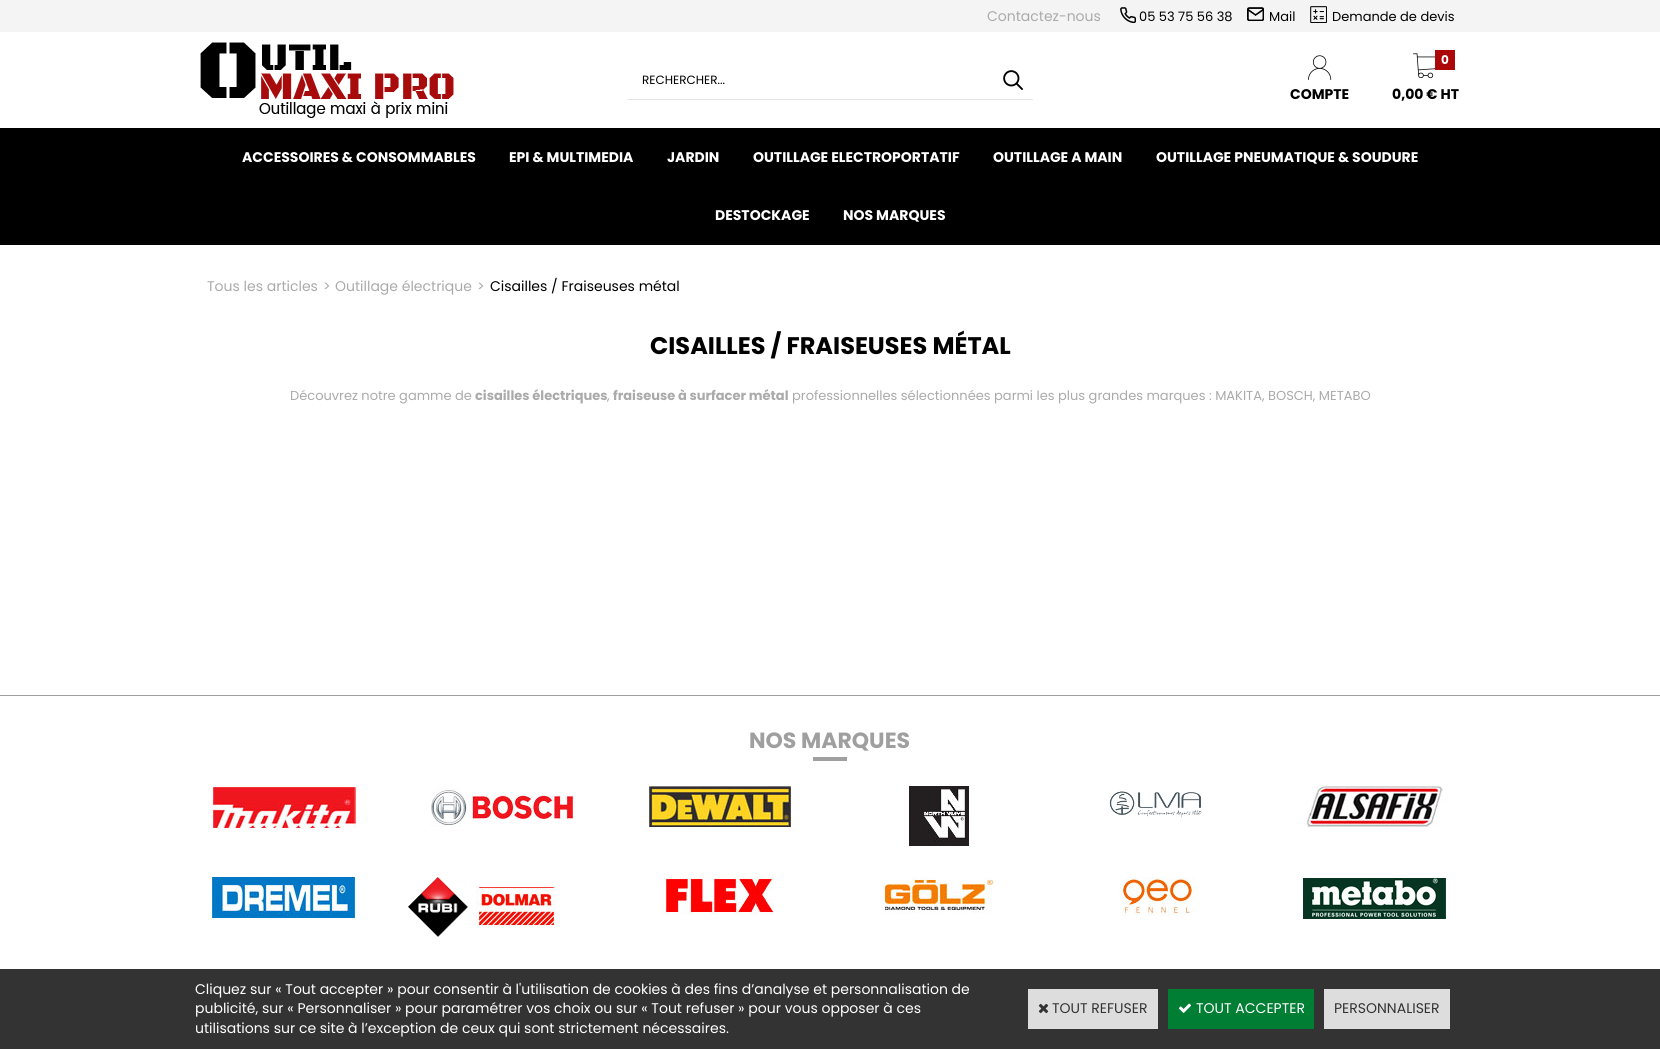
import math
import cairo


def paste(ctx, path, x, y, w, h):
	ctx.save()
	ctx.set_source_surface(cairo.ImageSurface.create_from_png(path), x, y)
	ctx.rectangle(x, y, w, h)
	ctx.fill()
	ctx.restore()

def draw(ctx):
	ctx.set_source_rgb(1, 1, 1)
	ctx.paint()
	ctx.set_source_rgb(0.957, 0.957, 0.957)
	ctx.rectangle(0, 0, 1660, 32)
	ctx.fill()
	ctx.select_font_face('Poppins')
	ctx.set_font_size(14)
	ctx.set_source_rgb(0.667, 0.667, 0.667)
	ctx.move_to(987, 21)
	ctx.show_text('Contactez-nous')
	paste(ctx, 'media/1.png', 1120, 7, 16, 16)
	ctx.set_font_size(13)
	ctx.set_source_rgb(0, 0, 0)
	ctx.move_to(1139, 21)
	ctx.show_text('05 53 75 56 38')
	paste(ctx, 'media/2.png', 1247, 7, 17, 14)
	ctx.move_to(1269, 21)
	ctx.show_text('Mail')
	paste(ctx, 'media/3.png', 1310, 6, 17, 17)
	ctx.move_to(1332, 21)
	ctx.show_text('Demande de devis')
	paste(ctx, 'media/4.png', 200, 42, 254, 76)
	ctx.set_source_rgb(0.902, 0.902, 0.902)
	ctx.rectangle(627, 99, 406, 1)
	ctx.fill()
	ctx.set_font_size(12)
	ctx.set_source_rgb(0, 0, 0)
	ctx.move_to(642, 84)
	ctx.show_text('RECHERCHER...')
	paste(ctx, 'media/5.png', 1003, 70, 20, 20)
	paste(ctx, 'media/6.png', 1308, 55, 24, 25)
	ctx.select_font_face('Poppins', cairo.FONT_SLANT_NORMAL, cairo.FONT_WEIGHT_BOLD)
	ctx.set_font_size(14)
	ctx.move_to(1290, 99)
	ctx.show_text('COMPTE')
	paste(ctx, 'media/7.png', 1413, 53, 22, 25)
	ctx.set_source_rgb(0.678, 0.035, 0.039)
	ctx.rectangle(1435, 50, 20, 20)
	ctx.fill()
	ctx.set_font_size(12)
	ctx.set_source_rgb(1, 1, 1)
	ctx.move_to(1441, 64)
	ctx.show_text('0')
	ctx.set_font_size(14)
	ctx.set_source_rgb(0, 0, 0)
	ctx.move_to(1392, 99)
	ctx.show_text('0,00 € HT')
	ctx.rectangle(0, 128, 1660, 117)
	ctx.fill()
	ctx.set_source_rgb(1, 1, 1)
	for x, y, s in [
		(242, 162, 'ACCESSOIRES & CONSOMMABLES'),
		(509, 162, 'EPI & MULTIMEDIA'),
		(667, 162, 'JARDIN'),
		(753, 162, 'OUTILLAGE ELECTROPORTATIF'),
		(993, 162, 'OUTILLAGE A MAIN'),
		(1156, 162, 'OUTILLAGE PNEUMATIQUE & SOUDURE'),
		(715, 220, 'DESTOCKAGE'),
		(843, 220, 'NOS MARQUES'),
	]:
		ctx.move_to(x, y)
		ctx.show_text(s)
	ctx.select_font_face('Poppins')
	ctx.set_source_rgb(0.667, 0.667, 0.667)
	for x, y, s in [
		(207, 291, 'Tous les articles'),
		(323, 291, '>'),
		(335, 291, 'Outillage électrique'),
		(477, 291, '>'),
	]:
		ctx.move_to(x, y)
		ctx.show_text(s)
	ctx.set_source_rgb(0, 0, 0)
	ctx.move_to(490, 291)
	ctx.show_text('Cisailles / Fraiseuses métal')
	ctx.select_font_face('Poppins', cairo.FONT_SLANT_NORMAL, cairo.FONT_WEIGHT_BOLD)
	ctx.set_font_size(24)
	ctx.move_to(650, 354)
	ctx.show_text('CISAILLES / FRAISEUSES MÉTAL')
	ctx.select_font_face('Poppins')
	ctx.set_font_size(13)
	ctx.set_source_rgb(0.667, 0.667, 0.667)
	ctx.move_to(290, 400)
	ctx.show_text('Découvrez notre gamme de')
	ctx.select_font_face('Poppins', cairo.FONT_SLANT_NORMAL, cairo.FONT_WEIGHT_BOLD)
	ctx.move_to(475, 400)
	ctx.show_text('cisailles électriques')
	ctx.select_font_face('Poppins')
	ctx.move_to(607, 400)
	ctx.show_text(',')
	ctx.select_font_face('Poppins', cairo.FONT_SLANT_NORMAL, cairo.FONT_WEIGHT_BOLD)
	ctx.move_to(613, 400)
	ctx.show_text('fraiseuse à surfacer métal')
	ctx.select_font_face('Poppins')
	ctx.move_to(792, 400)
	ctx.show_text('professionnelles sélectionnées parmi les plus grandes marques : MAKITA, BOSCH, METABO')
	ctx.set_source_rgb(0.624, 0.624, 0.624)
	ctx.rectangle(0, 695, 1660, 1)
	ctx.fill()
	ctx.select_font_face('Poppins', cairo.FONT_SLANT_NORMAL, cairo.FONT_WEIGHT_BOLD)
	ctx.set_font_size(22)
	ctx.move_to(749, 748)
	ctx.show_text('NOS MARQUES')
	ctx.rectangle(813, 757, 34, 4)
	ctx.fill()
	paste(ctx, 'media/8.png', 213, 787, 143, 41)
	paste(ctx, 'media/9.png', 430, 787, 143, 40)
	paste(ctx, 'media/10.png', 649, 786, 143, 41)
	paste(ctx, 'media/11.png', 909, 786, 60, 60)
	paste(ctx, 'media/12.png', 1109, 791, 93, 27)
	paste(ctx, 'media/13.png', 1306, 786, 139, 41)
	paste(ctx, 'media/14.png', 212, 877, 143, 41)
	paste(ctx, 'media/15.png', 408, 877, 60, 60)
	paste(ctx, 'media/16.png', 476, 886, 80, 40)
	paste(ctx, 'media/17.png', 662, 877, 112, 38)
	paste(ctx, 'media/18.png', 882, 877, 114, 37)
	paste(ctx, 'media/19.png', 1119, 877, 77, 39)
	paste(ctx, 'media/20.png', 1303, 878, 143, 41)
	ctx.set_source_rgb(0.2, 0.2, 0.2)
	ctx.rectangle(0, 969, 1660, 80)
	ctx.fill()
	ctx.select_font_face('Poppins')
	ctx.set_font_size(14)
	ctx.set_source_rgb(1, 1, 1)
	for x, y, s in [
		(195, 994, 'Cliquez sur « Tout accepter » pour consentir à l\'utilisation de cookies à des fins d’analyse et personnalisation de'),
		(195, 1013, 'publicité, sur « Personnaliser » pour paramétrer vos choix ou sur « Tout refuser » pour vous opposer à ces'),
		(195, 1033, 'utilisations sur ce site à l’exception de ceux qui sont strictement nécessaires.'),
	]:
		ctx.move_to(x, y)
		ctx.show_text(s)
	ctx.set_source_rgb(0.867, 0.867, 0.867)
	ctx.rectangle(1028, 989, 130, 40)
	ctx.fill()
	paste(ctx, 'media/21.png', 1038, 1003, 11, 11)
	ctx.set_source_rgb(0.2, 0.2, 0.2)
	ctx.move_to(1052, 1013)
	ctx.show_text('TOUT REFUSER')
	ctx.set_source_rgb(0, 0.494, 0.2)
	ctx.rectangle(1168, 989, 146, 40)
	ctx.fill()
	paste(ctx, 'media/22.png', 1179, 1003, 12, 10)
	ctx.set_source_rgb(1, 1, 1)
	ctx.move_to(1196, 1013)
	ctx.show_text('TOUT ACCEPTER')
	ctx.set_source_rgb(0.867, 0.867, 0.867)
	ctx.rectangle(1324, 989, 126, 40)
	ctx.fill()
	ctx.set_source_rgb(0.2, 0.2, 0.2)
	ctx.move_to(1334, 1013)
	ctx.show_text('PERSONNALISER')


surface = cairo.ImageSurface(cairo.FORMAT_RGB24, 1660, 1049)
ctx = cairo.Context(surface)
options = cairo.FontOptions()
options.set_hint_metrics(cairo.HINT_METRICS_OFF)
options.set_hint_style(cairo.HINT_STYLE_NONE)
ctx.set_font_options(options)
ctx.set_miter_limit(4)
draw(ctx)
surface.write_to_png('image.png')
